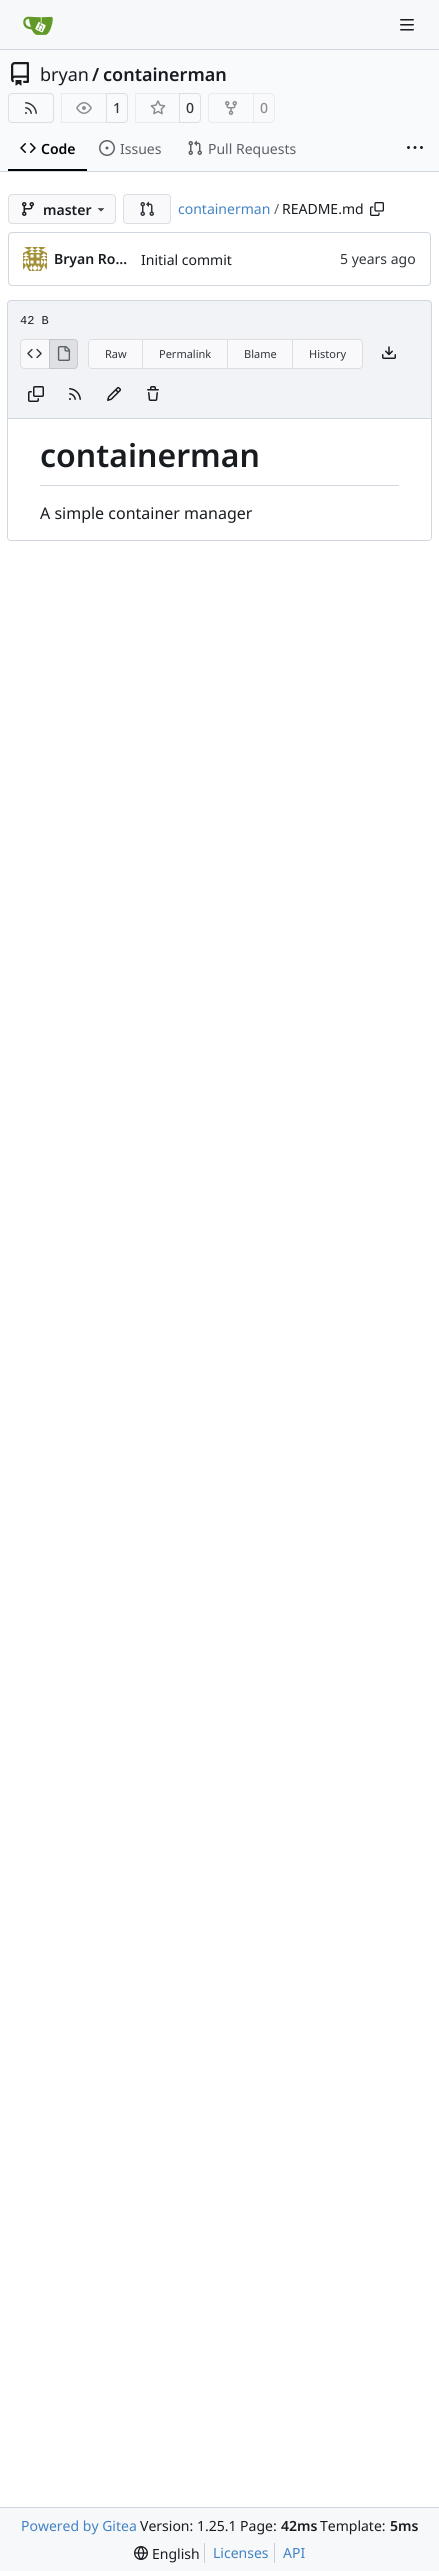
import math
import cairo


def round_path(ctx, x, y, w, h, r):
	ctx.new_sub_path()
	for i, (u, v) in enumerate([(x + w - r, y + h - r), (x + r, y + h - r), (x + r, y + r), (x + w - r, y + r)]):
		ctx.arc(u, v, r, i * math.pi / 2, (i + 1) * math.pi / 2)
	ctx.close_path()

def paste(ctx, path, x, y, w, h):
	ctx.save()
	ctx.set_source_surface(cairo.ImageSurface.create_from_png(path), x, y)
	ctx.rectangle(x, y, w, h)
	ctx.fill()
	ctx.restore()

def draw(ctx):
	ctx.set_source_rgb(1, 1, 1)
	ctx.paint()
	ctx.set_source_rgb(0.965, 0.969, 0.98)
	ctx.rectangle(0, 0, 439, 49)
	ctx.fill()
	ctx.set_source_rgb(0.816, 0.843, 0.871)
	ctx.rectangle(0, 49, 439, 1)
	ctx.fill()
	paste(ctx, 'media/1.png', 23, 16, 30, 19)
	paste(ctx, 'media/2.png', 400, 19, 14, 12)
	ctx.set_source_rgb(0.976, 0.98, 0.984)
	ctx.rectangle(0, 50, 439, 121)
	ctx.fill()
	paste(ctx, 'media/3.png', 11, 62, 18, 24)
	ctx.select_font_face('Noto Sans')
	ctx.set_font_size(18)
	ctx.set_source_rgb(0.094, 0.11, 0.129)
	ctx.move_to(40, 81)
	ctx.show_text('bryan')
	ctx.select_font_face('Noto Sans SemiBold')
	ctx.move_to(92, 81)
	ctx.show_text('/')
	ctx.move_to(103, 81)
	ctx.show_text('containerman')
	round_path(ctx, 8.5, 93.5, 45, 29, 3.5)
	ctx.set_source_rgb(0.867, 0.871, 0.882)
	ctx.set_line_width(1)
	ctx.stroke()
	paste(ctx, 'media/4.png', 25, 102, 12, 12)
	ctx.new_path()
	ctx.move_to(106.5, 93.5)
	ctx.line_to(124, 93.5)
	ctx.curve_to(126, 93.5, 127.5, 95, 127.5, 97)
	ctx.line_to(127.5, 119)
	ctx.curve_to(127.5, 121, 126, 122.5, 124, 122.5)
	ctx.line_to(106.5, 122.5)
	ctx.close_path()
	ctx.stroke()
	ctx.set_source_rgba(0.973, 0.976, 0.984, 0.55)
	ctx.new_path()
	ctx.move_to(65, 93)
	ctx.line_to(107, 93)
	ctx.line_to(107, 123)
	ctx.line_to(65, 123)
	ctx.curve_to(63, 123, 61, 121, 61, 119)
	ctx.line_to(61, 97)
	ctx.curve_to(61, 95, 63, 93, 65, 93)
	ctx.close_path()
	ctx.fill()
	ctx.rectangle(61.5, 93.5, 45, 29)
	ctx.set_source_rgba(0, 0, 0.09, 0.06)
	ctx.stroke()
	paste(ctx, 'media/5.png', 76, 102, 16, 12)
	ctx.select_font_face('Noto Sans Medium')
	ctx.set_font_size(14)
	ctx.set_source_rgb(0.188, 0.212, 0.231)
	ctx.move_to(113, 113)
	ctx.show_text('1')
	ctx.new_path()
	ctx.move_to(179.5, 93.5)
	ctx.line_to(197, 93.5)
	ctx.curve_to(199, 93.5, 200.5, 95, 200.5, 97)
	ctx.line_to(200.5, 119)
	ctx.curve_to(200.5, 121, 199, 122.5, 197, 122.5)
	ctx.line_to(179.5, 122.5)
	ctx.close_path()
	ctx.set_source_rgb(0.867, 0.871, 0.882)
	ctx.stroke()
	ctx.set_source_rgba(0.973, 0.976, 0.984, 0.55)
	ctx.new_path()
	ctx.move_to(139, 93)
	ctx.line_to(180, 93)
	ctx.line_to(180, 123)
	ctx.line_to(139, 123)
	ctx.curve_to(137, 123, 135, 121, 135, 119)
	ctx.line_to(135, 97)
	ctx.curve_to(135, 95, 137, 93, 139, 93)
	ctx.close_path()
	ctx.fill()
	ctx.rectangle(135.5, 93.5, 44, 29)
	ctx.set_source_rgba(0, 0, 0.09, 0.06)
	ctx.stroke()
	paste(ctx, 'media/6.png', 150, 100, 16, 15)
	ctx.set_source_rgb(0.188, 0.212, 0.231)
	ctx.move_to(186, 113)
	ctx.show_text('0')
	ctx.new_path()
	ctx.move_to(212, 93.5)
	ctx.line_to(253.5, 93.5)
	ctx.line_to(253.5, 122.5)
	ctx.line_to(212, 122.5)
	ctx.curve_to(210, 122.5, 208.5, 121, 208.5, 119)
	ctx.line_to(208.5, 97)
	ctx.curve_to(208.5, 95, 210, 93.5, 212, 93.5)
	ctx.close_path()
	ctx.set_source_rgb(0.914, 0.918, 0.929)
	ctx.stroke()
	paste(ctx, 'media/7.png', 225, 101, 12, 14)
	ctx.set_source_rgb(0.973, 0.976, 0.984)
	ctx.new_path()
	ctx.move_to(253.5, 93.5)
	ctx.line_to(271, 93.5)
	ctx.curve_to(273, 93.5, 274.5, 95, 274.5, 97)
	ctx.line_to(274.5, 119)
	ctx.curve_to(274.5, 121, 273, 122.5, 271, 122.5)
	ctx.line_to(253.5, 122.5)
	ctx.close_path()
	ctx.fill_preserve()
	ctx.set_source_rgb(0.914, 0.918, 0.929)
	ctx.stroke()
	ctx.set_source_rgb(0.541, 0.557, 0.569)
	ctx.move_to(260, 113)
	ctx.show_text('0')
	ctx.set_source_rgb(0.004, 0.02, 0.039)
	ctx.rectangle(8, 169, 79, 2)
	ctx.fill()
	paste(ctx, 'media/8.png', 20, 143, 16, 10)
	ctx.select_font_face('Noto Sans SemiBold')
	ctx.move_to(41, 154)
	ctx.show_text('Code')
	paste(ctx, 'media/9.png', 99, 140, 16, 16)
	ctx.select_font_face('Noto Sans')
	ctx.set_source_rgb(0.357, 0.38, 0.404)
	ctx.move_to(120, 154)
	ctx.show_text('Issues')
	paste(ctx, 'media/10.png', 188, 140, 14, 15)
	ctx.move_to(208, 154)
	ctx.show_text('Pull Requests')
	paste(ctx, 'media/11.png', 407, 146, 16, 3)
	ctx.set_source_rgb(0.816, 0.843, 0.871)
	ctx.rectangle(0, 171, 439, 1)
	ctx.fill()
	ctx.set_source_rgb(0.973, 0.976, 0.984)
	round_path(ctx, 8.5, 194.5, 107, 29, 3.5)
	ctx.fill_preserve()
	ctx.set_source_rgb(0.863, 0.867, 0.882)
	ctx.stroke()
	paste(ctx, 'media/12.png', 22, 202, 12, 14)
	ctx.select_font_face('Noto Sans SemiBold')
	ctx.set_source_rgb(0.094, 0.11, 0.129)
	ctx.move_to(43, 215)
	ctx.show_text('master')
	paste(ctx, 'media/13.png', 97, 208, 8, 4)
	ctx.set_source_rgb(0.973, 0.976, 0.984)
	round_path(ctx, 123.5, 194.5, 47, 29, 3.5)
	ctx.fill_preserve()
	ctx.set_source_rgb(0.863, 0.867, 0.882)
	ctx.stroke()
	paste(ctx, 'media/14.png', 140, 201, 14, 15)
	ctx.select_font_face('Noto Sans')
	ctx.set_source_rgb(0.255, 0.514, 0.769)
	ctx.move_to(178, 214)
	ctx.show_text('containerman')
	ctx.set_source_rgb(0.357, 0.38, 0.404)
	ctx.move_to(274, 214)
	ctx.show_text('/')
	ctx.set_source_rgb(0.094, 0.11, 0.129)
	ctx.move_to(282, 214)
	ctx.show_text('README.md')
	paste(ctx, 'media/15.png', 370, 202, 14, 14)
	round_path(ctx, 8.5, 232.5, 422, 53, 3.5)
	ctx.set_source_rgb(0.816, 0.843, 0.871)
	ctx.stroke()
	paste(ctx, 'media/16.png', 23, 247, 24, 24)
	ctx.select_font_face('Noto Sans SemiBold')
	ctx.set_source_rgb(0.094, 0.11, 0.129)
	ctx.move_to(54, 264)
	ctx.show_text('Bryan Ro…')
	ctx.select_font_face('Noto Sans')
	ctx.move_to(141, 265)
	ctx.show_text('Initial commit')
	ctx.set_source_rgb(0.188, 0.212, 0.231)
	ctx.move_to(340, 264)
	ctx.show_text('5 years ago')
	ctx.set_source_rgb(0.945, 0.953, 0.961)
	ctx.new_path()
	ctx.move_to(11, 300.5)
	ctx.line_to(428, 300.5)
	ctx.curve_to(430, 300.5, 431.5, 302, 431.5, 304)
	ctx.line_to(431.5, 418.5)
	ctx.line_to(7.5, 418.5)
	ctx.line_to(7.5, 304)
	ctx.curve_to(7.5, 302, 9, 300.5, 11, 300.5)
	ctx.close_path()
	ctx.fill_preserve()
	ctx.set_source_rgb(0.816, 0.843, 0.871)
	ctx.stroke()
	ctx.select_font_face('Liberation Mono')
	ctx.set_font_size(12)
	ctx.set_source_rgb(0.094, 0.11, 0.129)
	ctx.move_to(20, 324)
	ctx.show_text('42 B')
	ctx.set_source_rgb(0.973, 0.976, 0.984)
	ctx.new_path()
	ctx.move_to(24, 339)
	ctx.line_to(49, 339)
	ctx.line_to(49, 369)
	ctx.line_to(24, 369)
	ctx.curve_to(22, 369, 20, 367, 20, 365)
	ctx.line_to(20, 343)
	ctx.curve_to(20, 341, 22, 339, 24, 339)
	ctx.close_path()
	ctx.fill()
	ctx.set_source_rgb(0.863, 0.867, 0.882)
	ctx.set_fill_rule(cairo.FILL_RULE_EVEN_ODD)
	ctx.new_path()
	ctx.move_to(24, 339)
	ctx.line_to(49, 339)
	ctx.line_to(49, 369)
	ctx.line_to(24, 369)
	ctx.curve_to(22, 369, 20, 367, 20, 365)
	ctx.line_to(20, 343)
	ctx.curve_to(20, 341, 22, 339, 24, 339)
	ctx.close_path()
	ctx.move_to(24, 340)
	ctx.line_to(49, 340)
	ctx.line_to(49, 368)
	ctx.line_to(24, 368)
	ctx.curve_to(22.5, 368, 21, 366.5, 21, 365)
	ctx.line_to(21, 343)
	ctx.curve_to(21, 341.5, 22.5, 340, 24, 340)
	ctx.close_path()
	ctx.fill()
	paste(ctx, 'media/17.png', 27, 348, 15, 11)
	ctx.set_source_rgb(0.871, 0.878, 0.89)
	ctx.new_path()
	ctx.move_to(49, 339)
	ctx.line_to(74, 339)
	ctx.curve_to(76, 339, 78, 341, 78, 343)
	ctx.line_to(78, 365)
	ctx.curve_to(78, 367, 76, 369, 74, 369)
	ctx.line_to(49, 369)
	ctx.close_path()
	ctx.fill()
	ctx.new_path()
	ctx.move_to(49.5, 339.5)
	ctx.line_to(74, 339.5)
	ctx.curve_to(76, 339.5, 77.5, 341, 77.5, 343)
	ctx.line_to(77.5, 365)
	ctx.curve_to(77.5, 367, 76, 368.5, 74, 368.5)
	ctx.line_to(49.5, 368.5)
	ctx.close_path()
	ctx.set_source_rgba(0, 0, 0.09, 0.11)
	ctx.stroke()
	paste(ctx, 'media/18.png', 57, 346, 14, 15)
	ctx.set_source_rgb(0.973, 0.976, 0.984)
	ctx.new_path()
	ctx.move_to(92, 339)
	ctx.line_to(142, 339)
	ctx.line_to(142, 369)
	ctx.line_to(92, 369)
	ctx.curve_to(90, 369, 88, 367, 88, 365)
	ctx.line_to(88, 343)
	ctx.curve_to(88, 341, 90, 339, 92, 339)
	ctx.close_path()
	ctx.fill()
	ctx.set_source_rgb(0.863, 0.867, 0.882)
	ctx.new_path()
	ctx.move_to(92, 339)
	ctx.line_to(142, 339)
	ctx.line_to(142, 369)
	ctx.line_to(92, 369)
	ctx.curve_to(90, 369, 88, 367, 88, 365)
	ctx.line_to(88, 343)
	ctx.curve_to(88, 341, 90, 339, 92, 339)
	ctx.close_path()
	ctx.move_to(92, 340)
	ctx.line_to(142, 340)
	ctx.line_to(142, 368)
	ctx.line_to(92, 368)
	ctx.curve_to(90, 368, 89, 367, 89, 365)
	ctx.line_to(89, 343)
	ctx.curve_to(89, 341, 90, 340, 92, 340)
	ctx.close_path()
	ctx.fill()
	ctx.select_font_face('Noto Sans')
	ctx.set_font_size(11)
	ctx.set_source_rgb(0.188, 0.212, 0.231)
	ctx.move_to(105, 358)
	ctx.show_text('Raw')
	ctx.set_source_rgb(0.973, 0.976, 0.984)
	ctx.rectangle(142, 339, 150, 30)
	ctx.fill()
	ctx.set_source_rgb(0.863, 0.867, 0.882)
	ctx.set_fill_rule(cairo.FILL_RULE_WINDING)
	ctx.new_path()
	ctx.move_to(142, 339)
	ctx.line_to(227, 339)
	ctx.line_to(227, 340)
	ctx.line_to(143, 340)
	ctx.close_path()
	ctx.fill()
	ctx.new_path()
	ctx.move_to(227, 369)
	ctx.line_to(142, 369)
	ctx.line_to(143, 368)
	ctx.line_to(227, 368)
	ctx.close_path()
	ctx.fill()
	ctx.set_source_rgba(0, 0, 0.09, 0.11)
	ctx.new_path()
	ctx.move_to(142, 369)
	ctx.line_to(142, 339)
	ctx.line_to(143, 340)
	ctx.line_to(143, 368)
	ctx.close_path()
	ctx.fill()
	ctx.set_source_rgb(0.188, 0.212, 0.231)
	ctx.move_to(159, 358)
	ctx.show_text('Permalink')
	ctx.set_source_rgb(0.863, 0.867, 0.882)
	ctx.new_path()
	ctx.move_to(227, 339)
	ctx.line_to(292, 339)
	ctx.line_to(292, 340)
	ctx.line_to(228, 340)
	ctx.close_path()
	ctx.fill()
	ctx.new_path()
	ctx.move_to(292, 369)
	ctx.line_to(227, 369)
	ctx.line_to(228, 368)
	ctx.line_to(292, 368)
	ctx.close_path()
	ctx.fill()
	ctx.set_source_rgba(0, 0, 0.09, 0.11)
	ctx.new_path()
	ctx.move_to(227, 369)
	ctx.line_to(227, 339)
	ctx.line_to(228, 340)
	ctx.line_to(228, 368)
	ctx.close_path()
	ctx.fill()
	ctx.set_source_rgb(0.188, 0.212, 0.231)
	ctx.move_to(244, 358)
	ctx.show_text('Blame')
	ctx.set_source_rgb(0.973, 0.976, 0.984)
	ctx.new_path()
	ctx.move_to(292.5, 339.5)
	ctx.line_to(359, 339.5)
	ctx.curve_to(361, 339.5, 362.5, 341, 362.5, 343)
	ctx.line_to(362.5, 365)
	ctx.curve_to(362.5, 367, 361, 368.5, 359, 368.5)
	ctx.line_to(292.5, 368.5)
	ctx.close_path()
	ctx.fill_preserve()
	ctx.set_source_rgb(0.863, 0.867, 0.882)
	ctx.stroke()
	ctx.set_source_rgb(0.188, 0.212, 0.231)
	ctx.move_to(309, 358)
	ctx.show_text('History')
	paste(ctx, 'media/19.png', 382, 346, 14, 13)
	paste(ctx, 'media/20.png', 28, 386, 16, 16)
	paste(ctx, 'media/21.png', 69, 388, 12, 12)
	paste(ctx, 'media/22.png', 107, 386, 15, 15)
	paste(ctx, 'media/23.png', 147, 386, 12, 15)
	ctx.set_source_rgb(0.816, 0.843, 0.871)
	ctx.set_fill_rule(cairo.FILL_RULE_EVEN_ODD)
	ctx.new_path()
	ctx.move_to(7, 419)
	ctx.line_to(432, 419)
	ctx.line_to(432, 537)
	ctx.curve_to(432, 539, 430, 541, 428, 541)
	ctx.line_to(11, 541)
	ctx.curve_to(9, 541, 7, 539, 7, 537)
	ctx.close_path()
	ctx.move_to(8, 419)
	ctx.line_to(431, 419)
	ctx.line_to(431, 537)
	ctx.curve_to(431, 539, 430, 540, 428, 540)
	ctx.line_to(11, 540)
	ctx.curve_to(9, 540, 8, 539, 8, 537)
	ctx.close_path()
	ctx.fill()
	ctx.rectangle(40, 485, 359, 1)
	ctx.fill()
	ctx.select_font_face('Noto Sans SemiBold')
	ctx.set_font_size(32)
	ctx.set_source_rgb(0.094, 0.11, 0.129)
	ctx.move_to(40, 467)
	ctx.show_text('containerman')
	ctx.select_font_face('Noto Sans')
	ctx.set_font_size(16)
	ctx.move_to(40, 519)
	ctx.show_text('A simple container manager')
	ctx.set_source_rgb(0.965, 0.969, 0.98)
	ctx.rectangle(0, 2508, 439, 63)
	ctx.fill()
	ctx.set_source_rgb(0.816, 0.843, 0.871)
	ctx.rectangle(0, 2507, 439, 1)
	ctx.fill()
	ctx.set_font_size(14)
	ctx.set_source_rgb(0.255, 0.514, 0.769)
	ctx.move_to(21, 2531)
	ctx.show_text('Powered by Gitea')
	ctx.set_source_rgb(0.094, 0.11, 0.129)
	ctx.move_to(140, 2531)
	ctx.show_text('Version: 1.25.1 Page:')
	ctx.select_font_face('Noto Sans SemiBold')
	ctx.move_to(281, 2531)
	ctx.show_text('42ms')
	ctx.select_font_face('Noto Sans')
	ctx.move_to(320, 2531)
	ctx.show_text('Template:')
	ctx.select_font_face('Noto Sans SemiBold')
	ctx.move_to(390, 2531)
	ctx.show_text('5ms')
	paste(ctx, 'media/24.png', 134, 2546, 14, 14)
	ctx.select_font_face('Noto Sans')
	ctx.move_to(152, 2559)
	ctx.show_text('English')
	ctx.set_source_rgb(0.78, 0.808, 0.835)
	ctx.rectangle(204, 2543, 1, 20)
	ctx.fill()
	ctx.set_source_rgb(0.255, 0.514, 0.769)
	ctx.move_to(213, 2558)
	ctx.show_text('Licenses')
	ctx.set_source_rgb(0.78, 0.808, 0.835)
	ctx.rectangle(274, 2543, 1, 20)
	ctx.fill()
	ctx.set_source_rgb(0.255, 0.514, 0.769)
	ctx.move_to(283, 2558)
	ctx.show_text('API')


surface = cairo.ImageSurface(cairo.FORMAT_RGB24, 439, 2571)
ctx = cairo.Context(surface)
options = cairo.FontOptions()
options.set_hint_metrics(cairo.HINT_METRICS_OFF)
options.set_hint_style(cairo.HINT_STYLE_NONE)
ctx.set_font_options(options)
ctx.set_miter_limit(4)
draw(ctx)
surface.write_to_png('image.png')
